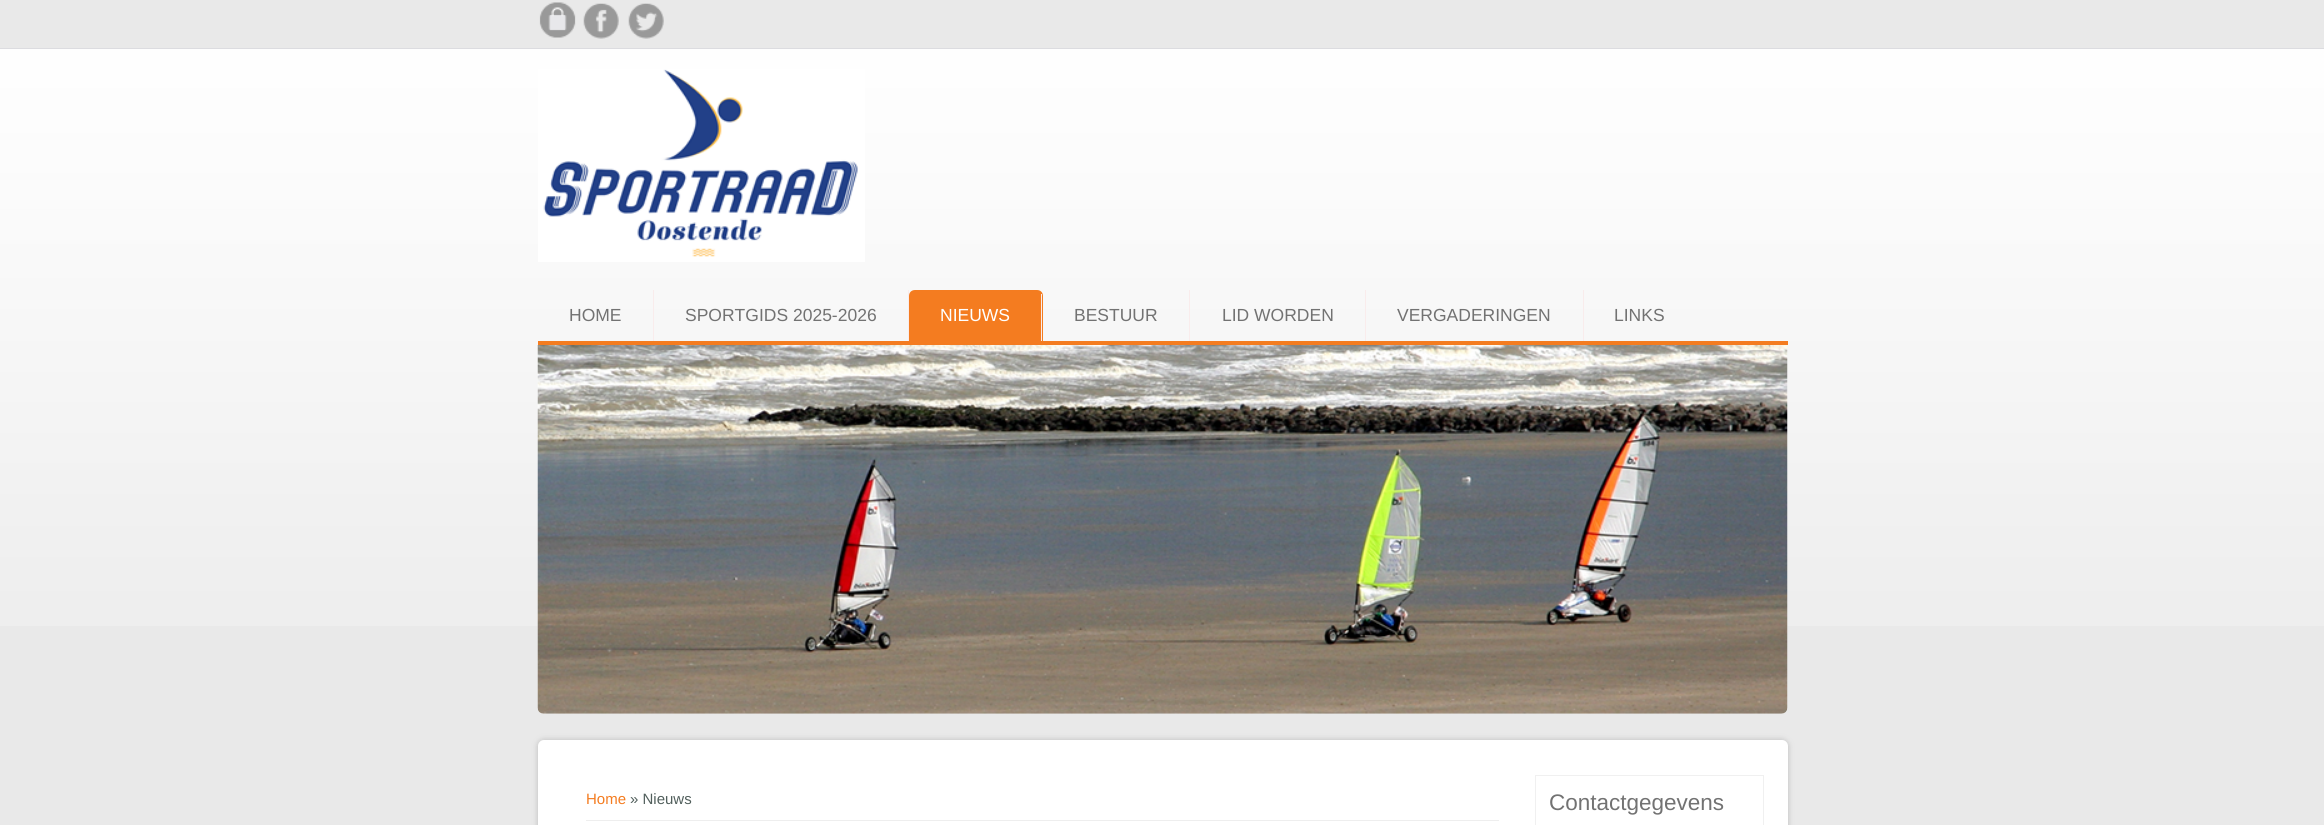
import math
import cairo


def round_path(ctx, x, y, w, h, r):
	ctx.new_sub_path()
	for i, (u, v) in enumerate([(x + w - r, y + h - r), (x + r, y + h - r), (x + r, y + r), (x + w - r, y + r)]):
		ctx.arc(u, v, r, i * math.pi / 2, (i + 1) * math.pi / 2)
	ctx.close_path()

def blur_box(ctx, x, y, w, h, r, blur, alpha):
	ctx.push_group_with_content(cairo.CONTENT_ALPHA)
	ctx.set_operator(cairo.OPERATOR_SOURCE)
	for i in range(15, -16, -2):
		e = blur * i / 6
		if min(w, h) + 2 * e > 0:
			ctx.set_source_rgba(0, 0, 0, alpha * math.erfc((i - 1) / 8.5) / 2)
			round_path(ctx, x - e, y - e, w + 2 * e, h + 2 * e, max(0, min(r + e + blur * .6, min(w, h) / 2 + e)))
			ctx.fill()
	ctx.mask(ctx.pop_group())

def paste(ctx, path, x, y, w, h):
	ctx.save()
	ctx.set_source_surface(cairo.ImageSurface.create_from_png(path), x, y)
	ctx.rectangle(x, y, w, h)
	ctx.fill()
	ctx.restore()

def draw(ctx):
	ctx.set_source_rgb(0.914, 0.914, 0.914)
	ctx.paint()
	paste(ctx, 'media/1.png', 0, 49, 2324, 577)
	ctx.set_source_rgb(0.863, 0.863, 0.878)
	ctx.rectangle(0, 48, 2324, 1)
	ctx.fill()
	paste(ctx, 'media/2.png', 539, 2, 37, 36)
	paste(ctx, 'media/3.png', 583, 3, 36, 36)
	paste(ctx, 'media/4.png', 628, 3, 36, 36)
	paste(ctx, 'media/5.png', 538, 69, 327, 193)
	ctx.set_source_rgb(0.957, 0.486, 0.125)
	ctx.rectangle(538, 341, 1250, 4)
	ctx.fill()
	ctx.set_source_rgb(0.973, 0.925, 0.925)
	ctx.rectangle(653, 290, 1, 51)
	ctx.fill()
	ctx.select_font_face('Liberation Sans')
	ctx.set_font_size(17.5)
	ctx.set_source_rgb(0.447, 0.447, 0.447)
	ctx.move_to(569, 321)
	ctx.show_text('HOME')
	ctx.set_source_rgb(0.973, 0.925, 0.925)
	ctx.rectangle(908, 290, 1, 51)
	ctx.fill()
	ctx.set_source_rgb(0.447, 0.447, 0.447)
	ctx.move_to(685, 321)
	ctx.show_text('SPORTGIDS 2025-2026')
	ctx.set_source_rgb(0.957, 0.486, 0.125)
	ctx.new_path()
	ctx.move_to(915, 290)
	ctx.line_to(1037, 290)
	ctx.curve_to(1040.5, 290, 1043, 292.5, 1043, 296)
	ctx.line_to(1043, 341)
	ctx.line_to(909, 341)
	ctx.line_to(909, 296)
	ctx.curve_to(909, 292.5, 911.5, 290, 915, 290)
	ctx.close_path()
	ctx.fill()
	ctx.set_source_rgb(0.973, 0.925, 0.925)
	ctx.rectangle(1041, 294, 1, 47)
	ctx.fill()
	ctx.set_source_rgb(1, 1, 1)
	ctx.move_to(940, 321)
	ctx.show_text('NIEUWS')
	ctx.set_source_rgb(0.973, 0.925, 0.925)
	ctx.rectangle(1189, 290, 1, 51)
	ctx.fill()
	ctx.set_source_rgb(0.447, 0.447, 0.447)
	ctx.move_to(1074, 321)
	ctx.show_text('BESTUUR')
	ctx.set_source_rgb(0.973, 0.925, 0.925)
	ctx.rectangle(1365, 290, 1, 51)
	ctx.fill()
	ctx.set_source_rgb(0.447, 0.447, 0.447)
	ctx.move_to(1222, 321)
	ctx.show_text('LID WORDEN')
	ctx.set_source_rgb(0.973, 0.925, 0.925)
	ctx.rectangle(1583, 290, 1, 51)
	ctx.fill()
	ctx.set_source_rgb(0.447, 0.447, 0.447)
	ctx.move_to(1397, 321)
	ctx.show_text('VERGADERINGEN')
	ctx.move_to(1614, 321)
	ctx.show_text('LINKS')
	paste(ctx, 'media/6.png', 537, 345, 1251, 369)
	ctx.set_source_rgb(0.733, 0.733, 0.733)
	blur_box(ctx, 538, 740, 1250, 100, 6, 3, 1)
	ctx.set_source_rgb(1, 1, 1)
	round_path(ctx, 538, 740, 1250, 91, 6)
	ctx.fill()
	ctx.set_source_rgb(0.933, 0.933, 0.933)
	ctx.rectangle(586, 820, 913, 1)
	ctx.fill()
	ctx.set_font_size(15)
	ctx.set_source_rgb(0.957, 0.486, 0.125)
	ctx.move_to(586, 804)
	ctx.show_text('Home')
	ctx.set_source_rgb(0.318, 0.373, 0.361)
	ctx.move_to(630, 804)
	ctx.show_text('» Nieuws')
	ctx.rectangle(1535.5, 775.5, 228, 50)
	ctx.set_source_rgb(0.941, 0.941, 0.941)
	ctx.set_line_width(1)
	ctx.stroke()
	ctx.set_font_size(22.5)
	ctx.set_source_rgb(0.447, 0.447, 0.447)
	ctx.move_to(1549, 810)
	ctx.show_text('Contactgegevens')


surface = cairo.ImageSurface(cairo.FORMAT_RGB24, 2324, 825)
ctx = cairo.Context(surface)
options = cairo.FontOptions()
options.set_hint_metrics(cairo.HINT_METRICS_OFF)
options.set_hint_style(cairo.HINT_STYLE_NONE)
ctx.set_font_options(options)
ctx.set_miter_limit(4)
draw(ctx)
surface.write_to_png('image.png')
